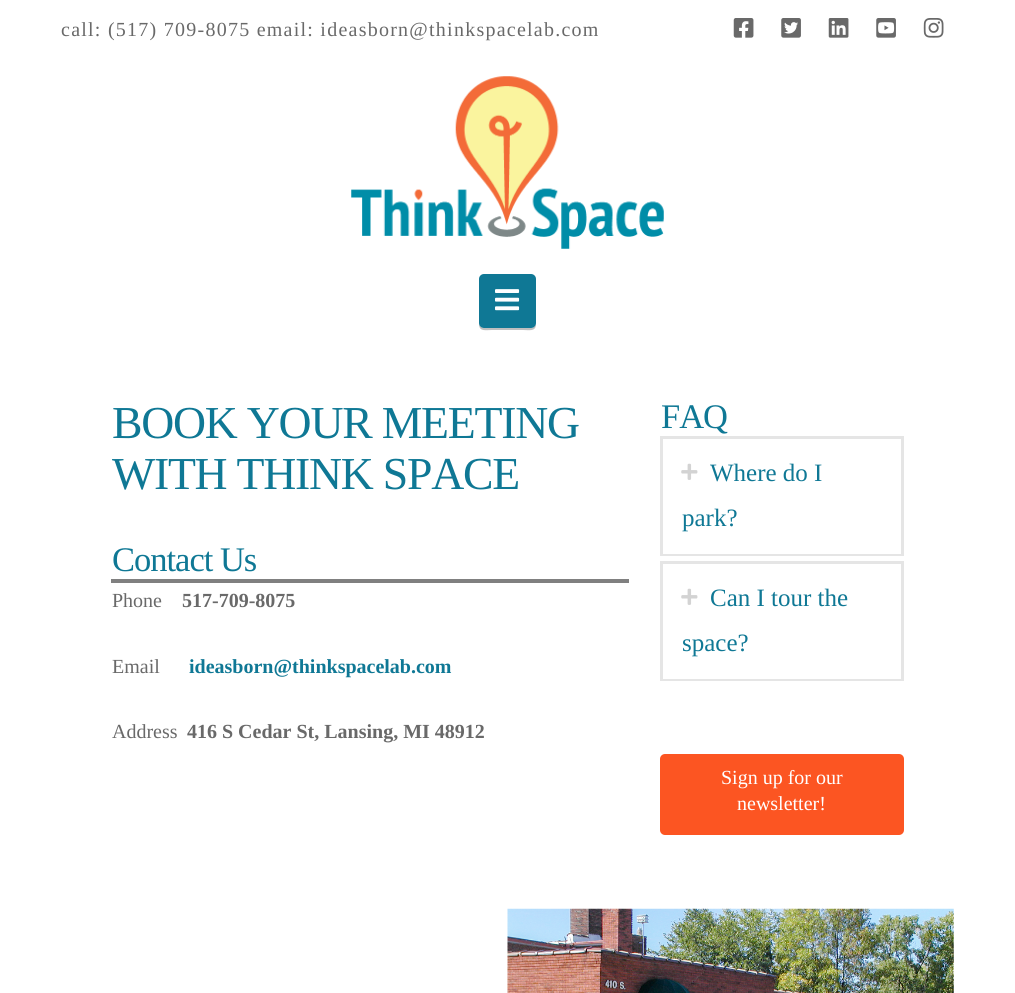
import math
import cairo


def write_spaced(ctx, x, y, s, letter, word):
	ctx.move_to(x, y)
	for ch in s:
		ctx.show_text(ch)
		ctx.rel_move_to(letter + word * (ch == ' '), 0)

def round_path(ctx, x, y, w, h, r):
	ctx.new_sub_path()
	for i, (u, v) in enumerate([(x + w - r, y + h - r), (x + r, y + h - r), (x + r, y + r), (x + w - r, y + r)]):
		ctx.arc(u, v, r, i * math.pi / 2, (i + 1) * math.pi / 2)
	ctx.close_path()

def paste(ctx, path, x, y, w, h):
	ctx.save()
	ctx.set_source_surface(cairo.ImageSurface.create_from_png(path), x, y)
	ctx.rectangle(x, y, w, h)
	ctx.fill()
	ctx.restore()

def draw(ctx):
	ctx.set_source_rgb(1, 1, 1)
	ctx.paint()
	ctx.select_font_face('Liberation Serif')
	ctx.set_font_size(20)
	ctx.set_source_rgb(0.412, 0.412, 0.412)
	write_spaced(ctx, 61, 36, 'call: (517) 709-8075 email: ideasborn@thinkspacelab.com', 1.25, 0)
	paste(ctx, 'media/1.png', 733, 18, 21, 20)
	paste(ctx, 'media/2.png', 781, 18, 20, 20)
	paste(ctx, 'media/3.png', 828, 18, 21, 20)
	paste(ctx, 'media/4.png', 876, 18, 20, 20)
	paste(ctx, 'media/5.png', 923, 18, 21, 20)
	paste(ctx, 'media/6.png', 351, 76, 313, 173)
	ctx.set_source_rgb(0.749, 0.749, 0.749)
	ctx.new_path()
	ctx.move_to(479, 324)
	ctx.curve_to(479, 332, 486, 330, 492, 330)
	ctx.line_to(523, 330)
	ctx.curve_to(529, 330, 536, 332, 536, 324)
	ctx.curve_to(535, 326, 533, 328, 531, 328)
	ctx.line_to(484, 328)
	ctx.curve_to(482, 328, 480, 326, 479, 324)
	ctx.close_path()
	ctx.fill()
	ctx.set_source_rgb(0.059, 0.471, 0.584)
	round_path(ctx, 479, 274, 57, 54, 5)
	ctx.fill()
	paste(ctx, 'media/7.png', 495, 289, 25, 22)
	ctx.set_font_size(45.75)
	write_spaced(ctx, 112, 438, 'BOOK YOUR MEETING', -1.25, 0)
	write_spaced(ctx, 112, 489, 'WITH THINK SPACE', -1.25, 0)
	ctx.set_font_size(34.5)
	write_spaced(ctx, 112, 571, 'Contact Us', -1, 0)
	ctx.set_source_rgb(0.502, 0.502, 0.502)
	ctx.rectangle(111, 579, 518, 4)
	ctx.fill()
	ctx.set_font_size(20)
	ctx.set_source_rgb(0.412, 0.412, 0.412)
	ctx.move_to(112, 607)
	ctx.show_text('Phone')
	ctx.select_font_face('Liberation Serif', cairo.FONT_SLANT_NORMAL, cairo.FONT_WEIGHT_BOLD)
	ctx.move_to(182, 607)
	ctx.show_text('517-709-8075')
	ctx.select_font_face('Liberation Serif')
	ctx.move_to(112, 673)
	ctx.show_text('Email')
	ctx.select_font_face('Liberation Serif', cairo.FONT_SLANT_NORMAL, cairo.FONT_WEIGHT_BOLD)
	ctx.set_source_rgb(0.059, 0.471, 0.584)
	ctx.move_to(189, 673)
	ctx.show_text('ideasborn@thinkspacelab.com')
	ctx.select_font_face('Liberation Serif')
	ctx.set_source_rgb(0.412, 0.412, 0.412)
	ctx.move_to(112, 738)
	ctx.show_text('Address')
	ctx.select_font_face('Liberation Serif', cairo.FONT_SLANT_NORMAL, cairo.FONT_WEIGHT_BOLD)
	ctx.move_to(187, 738)
	ctx.show_text('416 S Cedar St, Lansing, MI 48912')
	ctx.select_font_face('Liberation Serif')
	ctx.set_font_size(34.5)
	ctx.set_source_rgb(0.059, 0.471, 0.584)
	write_spaced(ctx, 661, 428, 'FAQ', -1, 0)
	ctx.rectangle(661.5, 437.5, 241, 117)
	ctx.set_source_rgb(0.898, 0.898, 0.898)
	ctx.set_line_width(3)
	ctx.stroke()
	ctx.set_source_rgb(1, 1, 1)
	ctx.rectangle(663, 553, 238, 1)
	ctx.fill()
	paste(ctx, 'media/8.png', 681, 463, 17, 17)
	ctx.set_font_size(25)
	ctx.set_source_rgb(0.059, 0.471, 0.584)
	ctx.move_to(710, 481)
	ctx.show_text('Where do I')
	ctx.move_to(682, 526)
	ctx.show_text('park?')
	ctx.rectangle(661.5, 562.5, 241, 117)
	ctx.set_source_rgb(0.898, 0.898, 0.898)
	ctx.stroke()
	ctx.set_source_rgb(1, 1, 1)
	ctx.rectangle(663, 678, 238, 1)
	ctx.fill()
	paste(ctx, 'media/8.png', 681, 588, 17, 17)
	ctx.set_source_rgb(0.059, 0.471, 0.584)
	ctx.move_to(710, 606)
	ctx.show_text('Can I tour the')
	ctx.move_to(682, 651)
	ctx.show_text('space?')
	ctx.set_source_rgb(0.988, 0.333, 0.133)
	round_path(ctx, 660, 754, 244, 81, 5)
	ctx.fill()
	ctx.set_font_size(20)
	ctx.set_source_rgb(1, 1, 1)
	ctx.move_to(721, 784)
	ctx.show_text('Sign up for our')
	ctx.move_to(737, 810)
	ctx.show_text('newsletter!')
	paste(ctx, 'media/9.png', 507, 908, 447, 85)


surface = cairo.ImageSurface(cairo.FORMAT_RGB24, 1015, 993)
ctx = cairo.Context(surface)
options = cairo.FontOptions()
options.set_hint_metrics(cairo.HINT_METRICS_OFF)
options.set_hint_style(cairo.HINT_STYLE_NONE)
ctx.set_font_options(options)
ctx.set_miter_limit(4)
draw(ctx)
surface.write_to_png('image.png')
